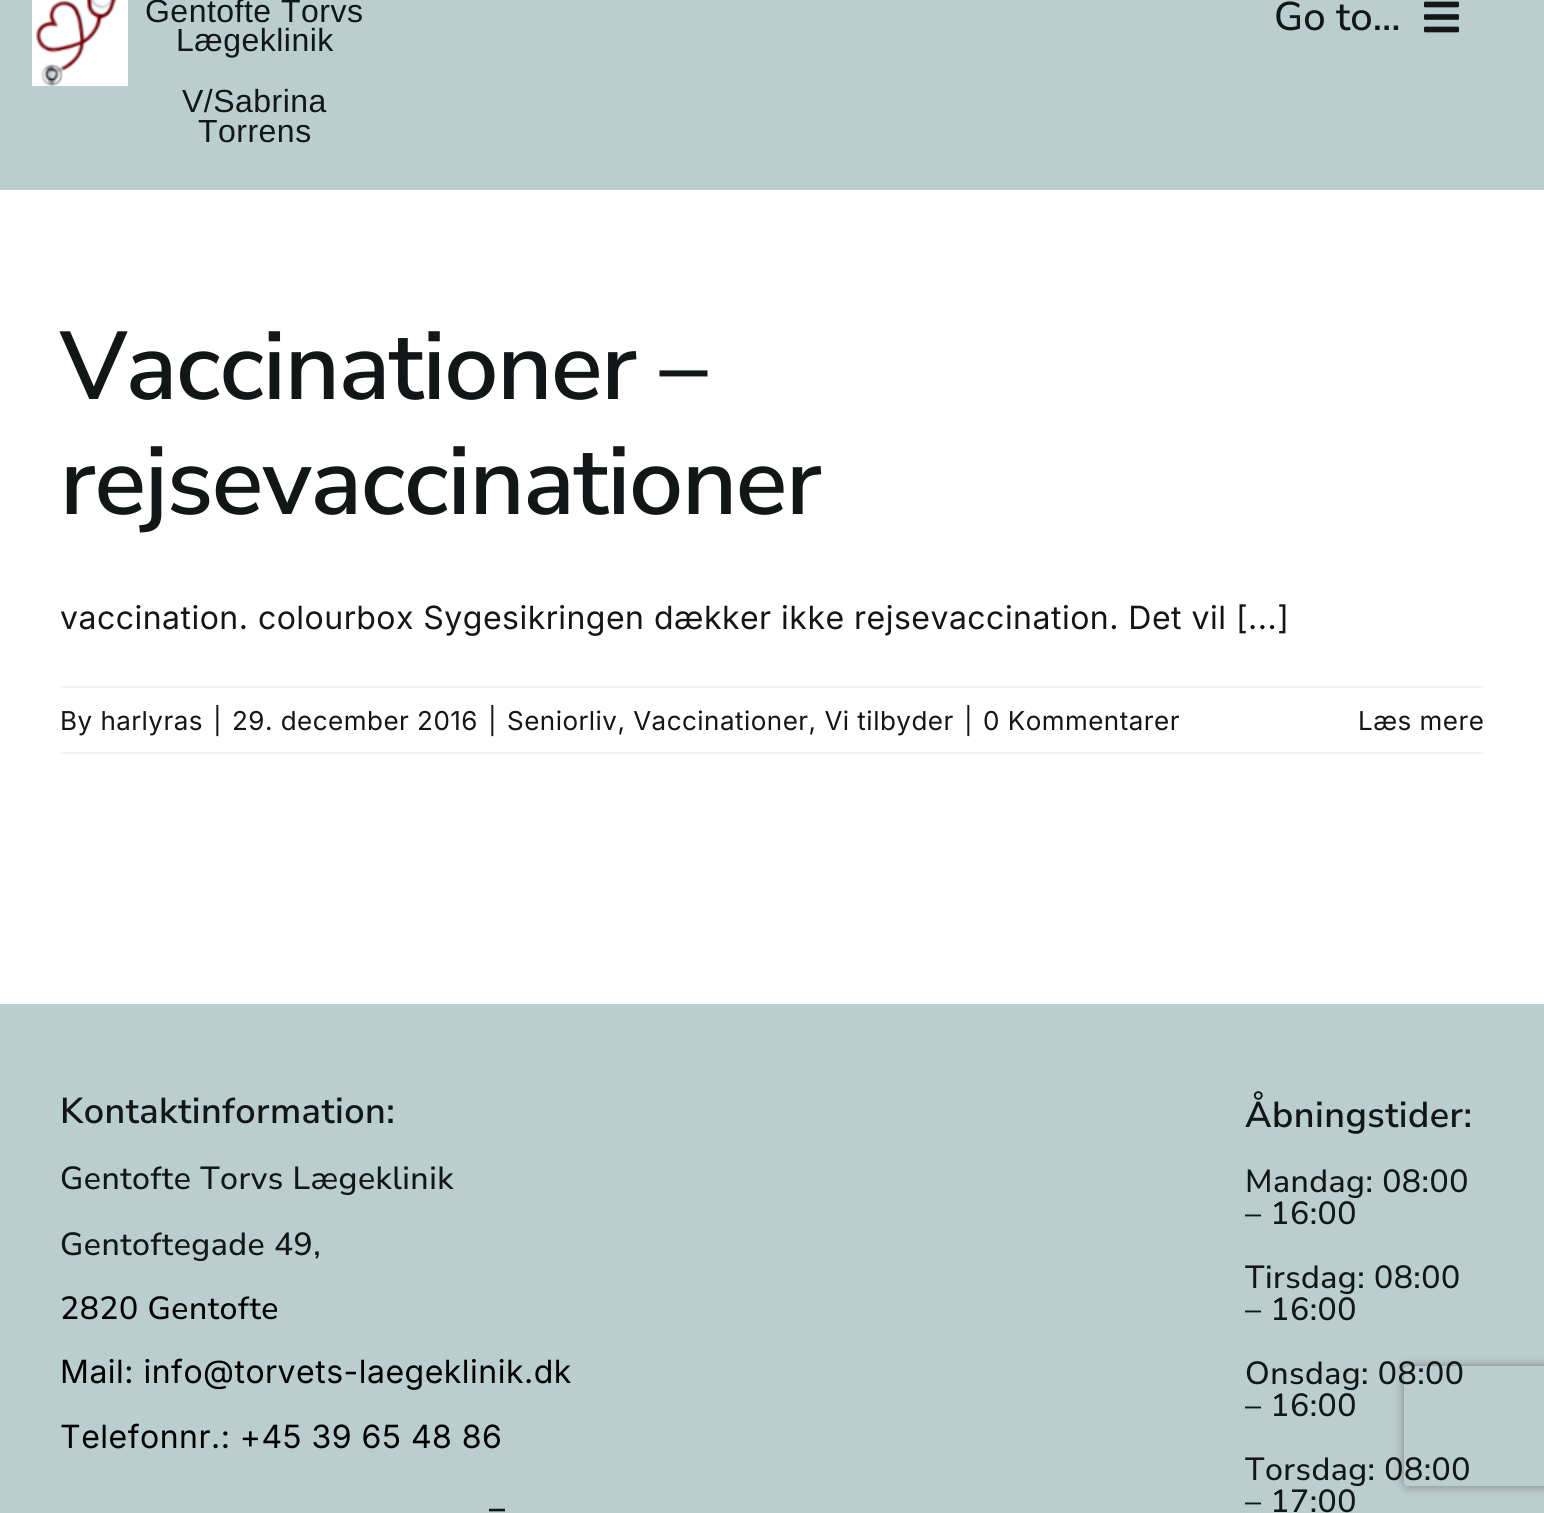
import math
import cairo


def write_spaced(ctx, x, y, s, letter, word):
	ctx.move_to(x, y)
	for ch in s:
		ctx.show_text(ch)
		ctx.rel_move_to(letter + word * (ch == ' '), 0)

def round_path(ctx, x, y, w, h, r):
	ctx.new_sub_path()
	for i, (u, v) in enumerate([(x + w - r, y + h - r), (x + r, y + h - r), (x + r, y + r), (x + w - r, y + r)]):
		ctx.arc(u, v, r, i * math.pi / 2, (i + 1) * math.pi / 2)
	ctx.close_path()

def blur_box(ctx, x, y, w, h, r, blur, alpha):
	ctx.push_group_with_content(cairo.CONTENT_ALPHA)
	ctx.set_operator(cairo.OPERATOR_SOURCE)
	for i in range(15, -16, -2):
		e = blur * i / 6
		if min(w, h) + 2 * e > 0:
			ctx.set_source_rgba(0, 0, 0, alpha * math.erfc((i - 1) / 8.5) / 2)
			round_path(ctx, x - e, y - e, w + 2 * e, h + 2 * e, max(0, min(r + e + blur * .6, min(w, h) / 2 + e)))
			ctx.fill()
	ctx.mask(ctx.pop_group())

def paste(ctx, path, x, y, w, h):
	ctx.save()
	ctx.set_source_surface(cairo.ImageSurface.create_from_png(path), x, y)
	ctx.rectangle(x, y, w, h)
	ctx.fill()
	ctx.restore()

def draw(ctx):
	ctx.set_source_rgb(1, 1, 1)
	ctx.paint()
	ctx.set_source_rgb(0.729, 0.804, 0.812)
	ctx.rectangle(0, 0, 1544, 190)
	ctx.fill()
	paste(ctx, 'media/1.png', 32, 0, 96, 86)
	ctx.select_font_face('Liberation Sans')
	ctx.set_font_size(32)
	ctx.set_source_rgb(0.078, 0.086, 0.09)
	for x, y, s in [
		(145, 22, 'Gentofte Torvs'),
		(176, 51, 'Lægeklinik'),
		(182, 112, 'V/Sabrina'),
		(198, 142, 'Torrens'),
	]:
		write_spaced(ctx, x, y, s, 0.48, 0)
	ctx.select_font_face('Nunito Sans Medium')
	ctx.set_font_size(40)
	ctx.move_to(1274, 30)
	ctx.show_text('Go to...')
	paste(ctx, 'media/2.png', 1424, 1, 35, 32)
	ctx.select_font_face('Nunito Sans SemiBold')
	ctx.set_font_size(96)
	write_spaced(ctx, 60, 399, 'Vaccinationer –', -1.4, 0)
	write_spaced(ctx, 60, 514, 'rejsevaccinationer', -1.4, 0)
	ctx.select_font_face('Inter')
	ctx.set_font_size(32)
	write_spaced(ctx, 60, 629, 'vaccination. colourbox Sygesikringen dækker ikke rejsevaccination. Det vil [...]', 0.48, 0)
	ctx.set_source_rgb(0.949, 0.953, 0.961)
	ctx.rectangle(60, 686, 1424, 2)
	ctx.fill()
	ctx.rectangle(60, 752, 1424, 2)
	ctx.fill()
	ctx.set_font_size(26)
	ctx.set_source_rgb(0.078, 0.086, 0.09)
	for x, y, s in [
		(60, 730, 'By harlyras'),
		(213, 730, '|'),
		(232, 730, '29. december 2016'),
		(488, 730, '|'),
		(507, 730, 'Seniorliv, Vaccinationer, Vi tilbyder'),
		(964, 730, '|'),
		(983, 730, '0 Kommentarer'),
		(1358, 730, 'Læs mere'),
	]:
		write_spaced(ctx, x, y, s, 0.48, 0)
	ctx.set_source_rgb(0.729, 0.804, 0.812)
	ctx.rectangle(0, 1004, 1544, 509)
	ctx.fill()
	ctx.select_font_face('Nunito Sans SemiBold')
	ctx.set_font_size(36)
	ctx.set_source_rgb(0.078, 0.086, 0.09)
	write_spaced(ctx, 60, 1123, 'Kontaktinformation:', 0.48, 0)
	ctx.select_font_face('Nunito Sans Medium')
	ctx.set_font_size(32)
	write_spaced(ctx, 60, 1189, 'Gentofte Torvs Lægeklinik', 0.48, 0)
	write_spaced(ctx, 60, 1255, 'Gentoftegade 49,', 0.48, 0)
	ctx.set_source_rgb(0, 0, 0)
	write_spaced(ctx, 60, 1319, '2820 Gentofte', 0.48, 0)
	ctx.select_font_face('Inter')
	write_spaced(ctx, 60, 1383, 'Mail: info@torvets-laegeklinik.dk', 0.48, 0)
	write_spaced(ctx, 60, 1448, 'Telefonnr.: +45 39 65 48 86', 0.48, 0)
	ctx.set_source_rgb(0.078, 0.086, 0.09)
	write_spaced(ctx, 489, 1520, '–', 0.48, 0)
	ctx.select_font_face('Nunito Sans SemiBold')
	ctx.set_font_size(36)
	write_spaced(ctx, 1245, 1127, 'Åbningstider:', 0.48, 0)
	ctx.select_font_face('Nunito Sans Medium')
	ctx.set_font_size(32)
	for x, y, s in [
		(1245, 1192, 'Mandag: 08:00'),
		(1245, 1224, '– 16:00'),
		(1245, 1288, 'Tirsdag: 08:00'),
		(1245, 1320, '– 16:00'),
	]:
		write_spaced(ctx, x, y, s, 0.48, 0)
	ctx.save()
	ctx.set_fill_rule(cairo.FILL_RULE_EVEN_ODD)
	ctx.new_path()
	ctx.move_to(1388, 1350)
	ctx.line_to(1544, 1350)
	ctx.line_to(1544, 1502)
	ctx.line_to(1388, 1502)
	ctx.close_path()
	ctx.move_to(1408, 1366)
	ctx.line_to(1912, 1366)
	ctx.curve_to(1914, 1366, 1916, 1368, 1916, 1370)
	ctx.line_to(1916, 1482)
	ctx.curve_to(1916, 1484, 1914, 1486, 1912, 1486)
	ctx.line_to(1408, 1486)
	ctx.curve_to(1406, 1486, 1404, 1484, 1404, 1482)
	ctx.line_to(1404, 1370)
	ctx.curve_to(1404, 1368, 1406, 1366, 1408, 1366)
	ctx.close_path()
	ctx.clip()
	ctx.set_source_rgb(0.502, 0.502, 0.502)
	blur_box(ctx, 1404, 1366, 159, 120, 4, 5, 1)
	ctx.restore()
	for x, y, s in [
		(1245, 1384, 'Onsdag: 08:00'),
		(1245, 1416, '– 16:00'),
		(1245, 1480, 'Torsdag: 08:00'),
		(1245, 1512, '– 17:00'),
	]:
		write_spaced(ctx, x, y, s, 0.48, 0)


surface = cairo.ImageSurface(cairo.FORMAT_RGB24, 1544, 1513)
ctx = cairo.Context(surface)
options = cairo.FontOptions()
options.set_hint_metrics(cairo.HINT_METRICS_OFF)
options.set_hint_style(cairo.HINT_STYLE_NONE)
ctx.set_font_options(options)
ctx.set_miter_limit(4)
draw(ctx)
surface.write_to_png('image.png')
